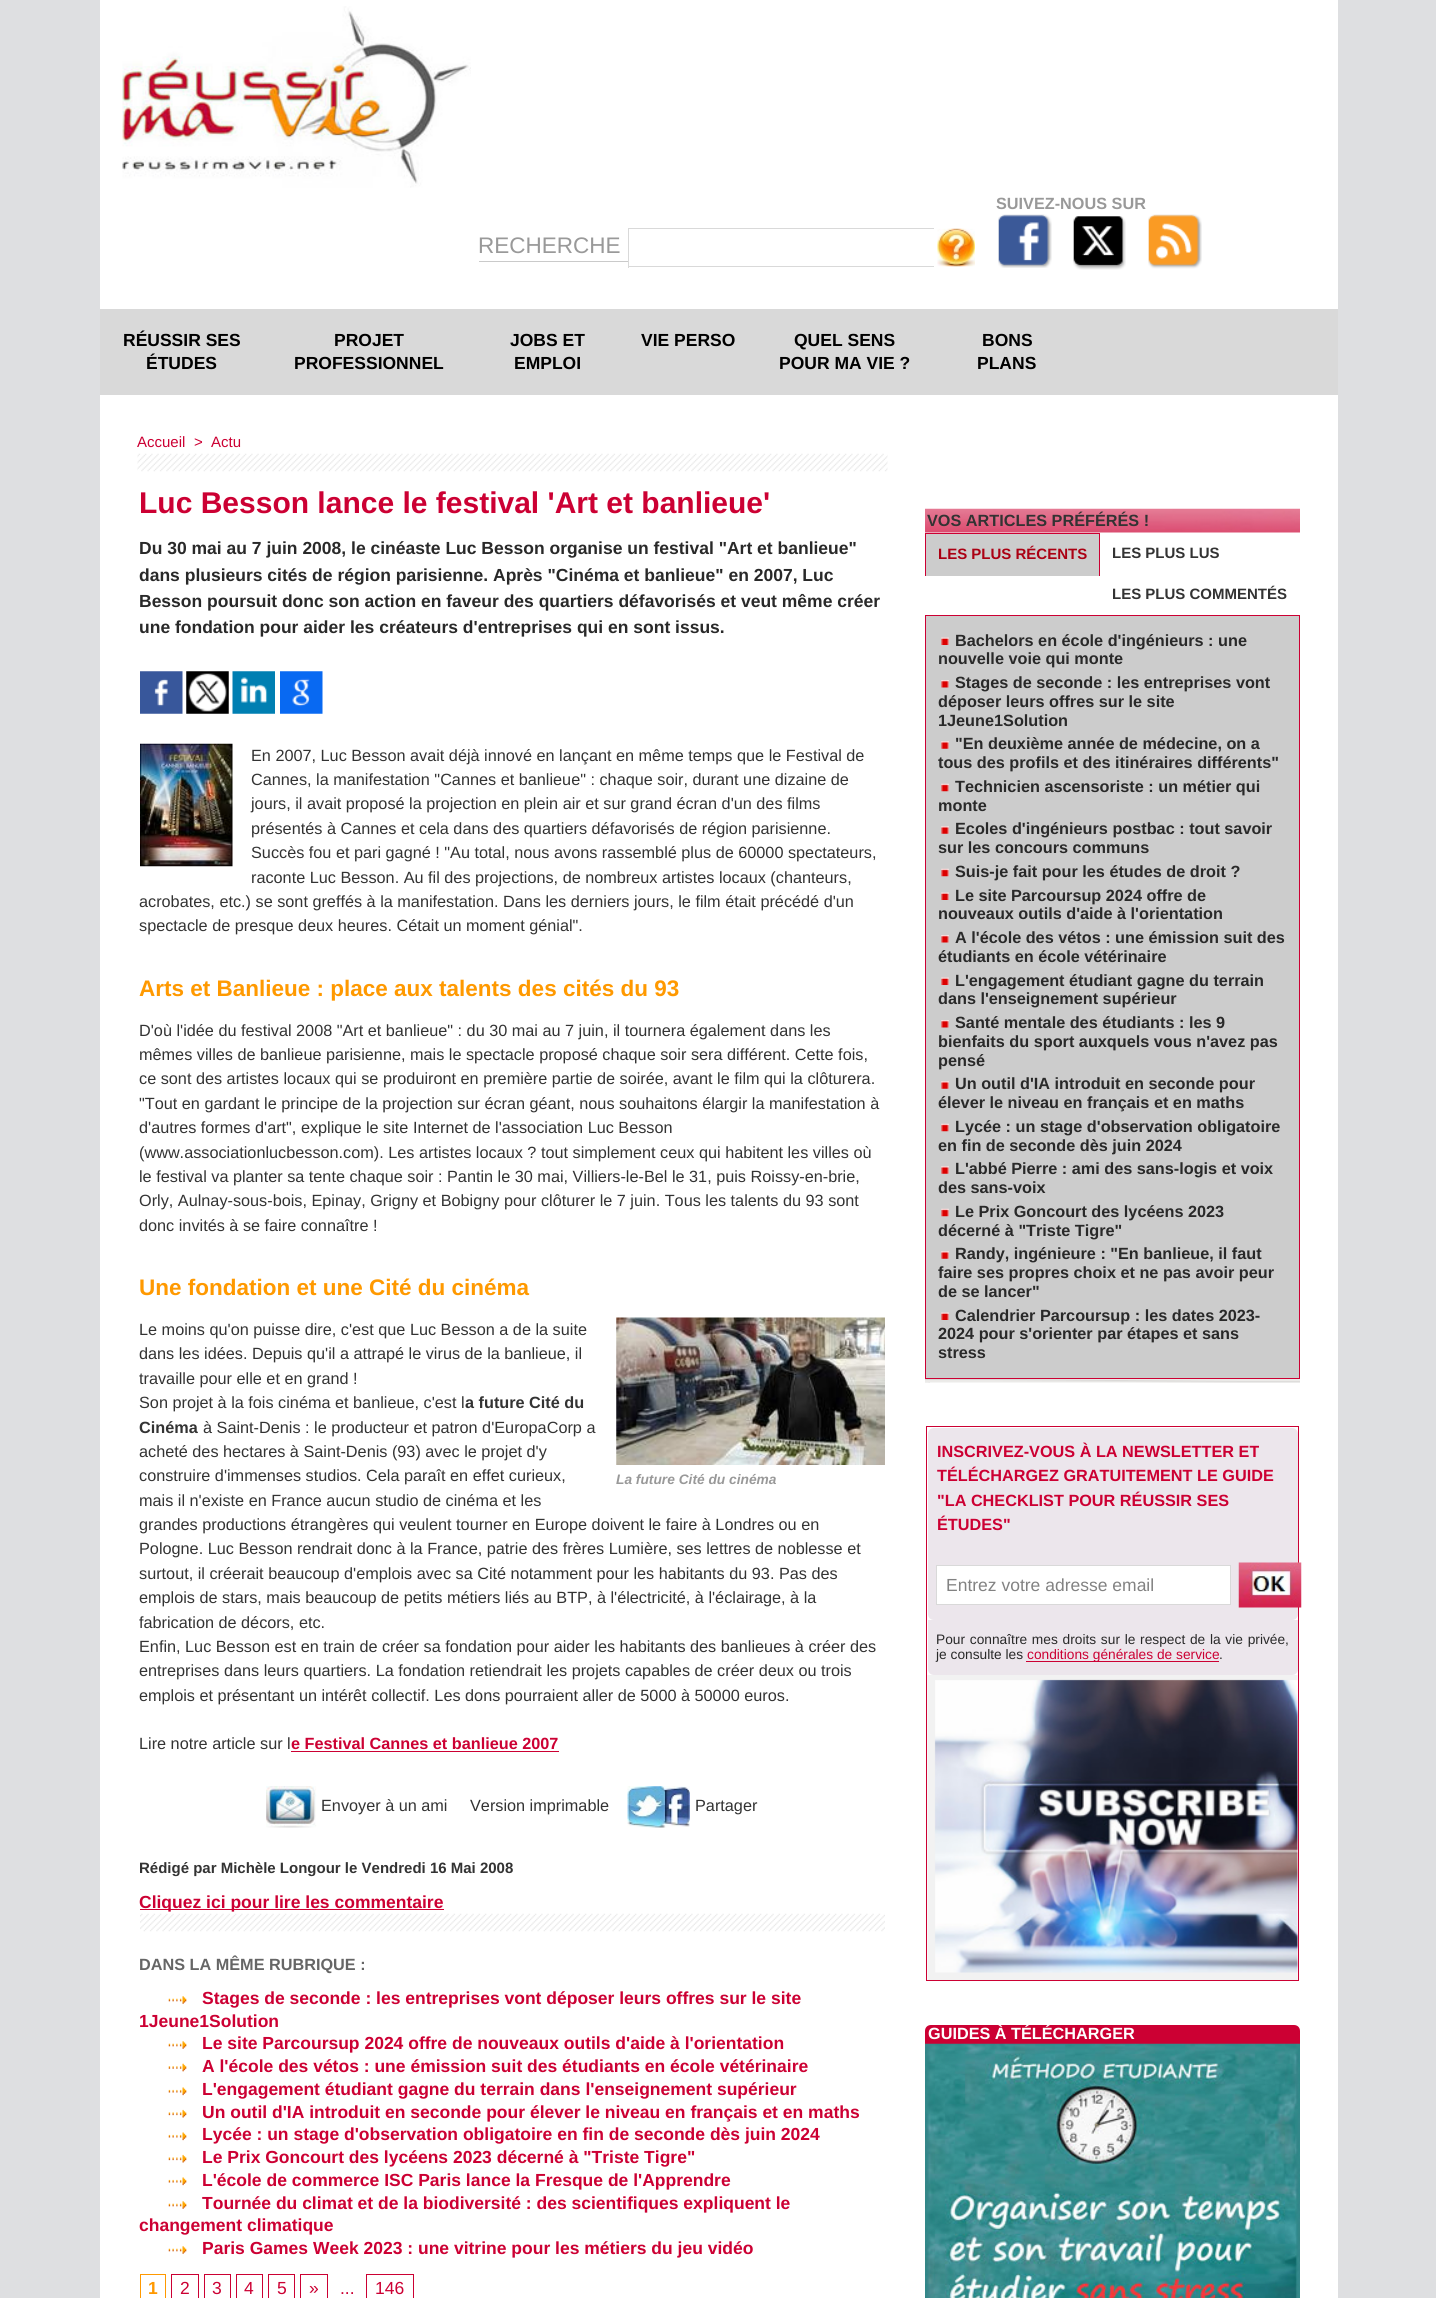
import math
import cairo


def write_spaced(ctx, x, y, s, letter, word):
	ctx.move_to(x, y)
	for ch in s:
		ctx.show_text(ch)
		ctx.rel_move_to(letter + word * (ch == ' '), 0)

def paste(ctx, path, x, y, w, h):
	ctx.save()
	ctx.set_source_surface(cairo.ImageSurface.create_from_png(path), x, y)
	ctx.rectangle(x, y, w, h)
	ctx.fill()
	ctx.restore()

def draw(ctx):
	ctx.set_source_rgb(0.871, 0.875, 0.882)
	ctx.paint()
	ctx.set_source_rgb(1, 1, 1)
	ctx.rectangle(100, 0, 1238, 426)
	ctx.fill()
	paste(ctx, 'media/1.png', 122, 6, 349, 182)
	ctx.select_font_face('Liberation Sans', cairo.FONT_SLANT_NORMAL, cairo.FONT_WEIGHT_BOLD)
	ctx.set_font_size(16.25)
	ctx.set_source_rgb(0.6, 0.6, 0.6)
	ctx.move_to(996, 209)
	ctx.show_text('SUIVEZ-NOUS SUR')
	paste(ctx, 'media/2.png', 998, 214, 54, 54)
	paste(ctx, 'media/3.png', 1073, 216, 53, 54)
	paste(ctx, 'media/4.png', 1148, 214, 54, 55)
	ctx.select_font_face('Liberation Sans')
	ctx.set_font_size(22.5)
	ctx.move_to(478, 253)
	ctx.show_text('RECHERCHE')
	ctx.set_source_rgb(0.792, 0.792, 0.792)
	ctx.rectangle(479, 261, 149, 1)
	ctx.fill()
	ctx.set_source_rgb(0.851, 0.851, 0.851)
	ctx.rectangle(628, 228, 306, 1)
	ctx.rectangle(628, 266, 306, 1)
	ctx.rectangle(628, 228, 1, 40)
	ctx.fill()
	paste(ctx, 'media/5.png', 937, 228, 38, 39)
	ctx.rectangle(100, 309, 1238, 86)
	ctx.fill()
	ctx.select_font_face('Liberation Sans', cairo.FONT_SLANT_NORMAL, cairo.FONT_WEIGHT_BOLD)
	ctx.set_font_size(17.5)
	ctx.set_source_rgb(0, 0, 0)
	for x, y, s in [
		(123, 346, 'RÉUSSIR SES'),
		(146, 369, 'ÉTUDES'),
		(334, 346, 'PROJET'),
		(294, 369, 'PROFESSIONNEL'),
		(510, 346, 'JOBS ET'),
		(514, 369, 'EMPLOI'),
		(641, 346, 'VIE PERSO'),
		(794, 346, 'QUEL SENS'),
		(779, 369, 'POUR MA VIE ?'),
		(982, 346, 'BONS'),
		(977, 369, 'PLANS'),
	]:
		ctx.move_to(x, y)
		ctx.show_text(s)
	ctx.set_source_rgb(1, 1, 1)
	ctx.rectangle(100, 426, 1238, 1872)
	ctx.fill()
	ctx.select_font_face('Liberation Sans')
	ctx.set_font_size(15)
	ctx.set_source_rgb(0.8, 0, 0.2)
	for x, y, s in [
		(137, 447, 'Accueil'),
		(194, 447, '>'),
		(211, 447, 'Actu'),
	]:
		ctx.move_to(x, y)
		ctx.show_text(s)
	paste(ctx, 'media/6.png', 137, 453, 751, 19)
	ctx.select_font_face('Liberation Sans', cairo.FONT_SLANT_NORMAL, cairo.FONT_WEIGHT_BOLD)
	ctx.set_font_size(30)
	ctx.move_to(139, 513)
	ctx.show_text('Luc Besson lance le festival \'Art et banlieue\'')
	ctx.set_font_size(17.5)
	ctx.set_source_rgb(0.161, 0.161, 0.161)
	for x, y, s in [
		(139, 554, 'Du 30 mai au 7 juin 2008, le cinéaste Luc Besson organise un festival "Art et banlieue"'),
		(139, 581, 'dans plusieurs cités de région parisienne. Après "Cinéma et banlieue" en 2007, Luc'),
		(139, 607, 'Besson poursuit donc son action en faveur des quartiers défavorisés et veut même créer'),
		(139, 633, 'une fondation pour aider les créateurs d\'entreprises qui en sont issus.'),
	]:
		ctx.move_to(x, y)
		ctx.show_text(s)
	paste(ctx, 'media/7.png', 140, 671, 43, 43)
	paste(ctx, 'media/8.png', 186, 671, 43, 43)
	paste(ctx, 'media/9.png', 232, 671, 43, 43)
	paste(ctx, 'media/10.png', 280, 671, 43, 43)
	paste(ctx, 'media/11.png', 140, 743, 93, 124)
	ctx.select_font_face('Liberation Sans')
	ctx.set_font_size(16.25)
	ctx.set_source_rgb(0.2, 0.2, 0.2)
	for x, y, s in [
		(251, 761, 'En 2007, Luc Besson avait déjà innové en lançant en même temps que le Festival de'),
		(251, 785, 'Cannes, la manifestation "Cannes et banlieue" : chaque soir, durant une dizaine de'),
		(251, 809, 'jours, il avait proposé la projection en plein air et sur grand écran d\'un des films'),
		(251, 834, 'présentés à Cannes et cela dans des quartiers défavorisés de région parisienne.'),
		(251, 858, 'Succès fou et pari gagné ! "Au total, nous avons rassemblé plus de 60000 spectateurs,'),
		(251, 883, 'raconte Luc Besson. Au fil des projections, de nombreux artistes locaux (chanteurs,'),
		(139, 907, 'acrobates, etc.) se sont greffés à la manifestation. Dans les derniers jours, le film était précédé d\'un'),
		(139, 931, 'spectacle de presque deux heures. Cétait un moment génial".'),
	]:
		ctx.move_to(x, y)
		ctx.show_text(s)
	ctx.select_font_face('Liberation Sans', cairo.FONT_SLANT_NORMAL, cairo.FONT_WEIGHT_BOLD)
	ctx.set_font_size(22.5)
	ctx.set_source_rgb(1, 0.6, 0)
	ctx.move_to(139, 996)
	ctx.show_text('Arts et Banlieue : place aux talents des cités du 93')
	ctx.select_font_face('Liberation Sans')
	ctx.set_font_size(16.25)
	ctx.set_source_rgb(0.2, 0.2, 0.2)
	for x, y, s in [
		(139, 1036, 'D\'où l\'idée du festival 2008 "Art et banlieue" : du 30 mai au 7 juin, il tournera également dans les'),
		(139, 1060, 'mêmes villes de banlieue parisienne, mais le spectacle proposé chaque soir sera différent. Cette fois,'),
		(139, 1084, 'ce sont des artistes locaux qui se produiront en première partie de soirée, avant le film qui la clôturera.'),
		(139, 1109, '"Tout en gardant le principe de la projection sur écran géant, nous souhaitons élargir la manifestation à'),
		(139, 1133, 'd\'autres formes d\'art", explique le site Internet de l\'association Luc Besson'),
		(139, 1158, '(www.associationlucbesson.com). Les artistes locaux ? tout simplement ceux qui habitent les villes où'),
		(139, 1182, 'le festival va planter sa tente chaque soir : Pantin le 30 mai, Villiers-le-Bel le 31, puis Roissy-en-brie,'),
		(139, 1206, 'Orly, Aulnay-sous-bois, Epinay, Grigny et Bobigny pour clôturer le 7 juin. Tous les talents du 93 sont'),
		(139, 1231, 'donc invités à se faire connaître !'),
	]:
		ctx.move_to(x, y)
		ctx.show_text(s)
	ctx.select_font_face('Liberation Sans', cairo.FONT_SLANT_NORMAL, cairo.FONT_WEIGHT_BOLD)
	ctx.set_font_size(22.5)
	ctx.set_source_rgb(1, 0.6, 0)
	ctx.move_to(139, 1295)
	ctx.show_text('Une fondation et une Cité du cinéma')
	ctx.select_font_face('Liberation Sans')
	ctx.set_font_size(16.25)
	ctx.set_source_rgb(0.2, 0.2, 0.2)
	for x, y, s in [
		(139, 1335, 'Le moins qu\'on puisse dire, c\'est que Luc Besson a de la suite'),
		(139, 1359, 'dans les idées. Depuis qu\'il a attrapé le virus de la banlieue, il'),
		(139, 1384, 'travaille pour elle et en grand !'),
		(139, 1408, 'Son projet à la fois cinéma et banlieue, c\'est l'),
	]:
		ctx.move_to(x, y)
		ctx.show_text(s)
	ctx.select_font_face('Liberation Sans', cairo.FONT_SLANT_NORMAL, cairo.FONT_WEIGHT_BOLD)
	ctx.move_to(465, 1408)
	ctx.show_text('a future Cité du')
	ctx.move_to(139, 1433)
	ctx.show_text('Cinéma')
	ctx.select_font_face('Liberation Sans')
	for x, y, s in [
		(203, 1433, 'à Saint-Denis : le producteur et patron d\'EuropaCorp a'),
		(139, 1457, 'acheté des hectares à Saint-Denis (93) avec le projet d\'y'),
		(139, 1481, 'construire d\'immenses studios. Cela paraît en effet curieux,'),
		(139, 1506, 'mais il n\'existe en France aucun studio de cinéma et les'),
		(139, 1530, 'grandes productions étrangères qui veulent tourner en Europe doivent le faire à Londres ou en'),
		(139, 1554, 'Pologne. Luc Besson rendrait donc à la France, patrie des frères Lumière, ses lettres de noblesse et'),
		(139, 1579, 'surtout, il créerait beaucoup d\'emplois avec sa Cité notamment pour les habitants du 93. Pas des'),
		(139, 1603, 'emplois de stars, mais beaucoup de petits métiers liés au BTP, à l\'électricité, à l\'éclairage, à la'),
		(139, 1628, 'fabrication de décors, etc.'),
		(139, 1652, 'Enfin, Luc Besson est en train de créer sa fondation pour aider les habitants des banlieues à créer des'),
		(139, 1676, 'entreprises dans leurs quartiers. La fondation retiendrait les projets capables de créer deux ou trois'),
		(139, 1701, 'emplois et présentant un intérêt collectif. Les dons pourraient aller de 5000 à 50000 euros.'),
		(139, 1749, 'Lire notre article sur l'),
	]:
		ctx.move_to(x, y)
		ctx.show_text(s)
	ctx.select_font_face('Liberation Sans', cairo.FONT_SLANT_NORMAL, cairo.FONT_WEIGHT_BOLD)
	ctx.set_source_rgb(0.8, 0, 0.2)
	ctx.move_to(291, 1749)
	ctx.show_text('e Festival Cannes et banlieue 2007')
	ctx.rectangle(291, 1751, 268, 1)
	ctx.fill()
	paste(ctx, 'media/12.png', 616, 1317, 269, 148)
	ctx.select_font_face('Liberation Sans', cairo.FONT_SLANT_ITALIC, cairo.FONT_WEIGHT_BOLD)
	ctx.set_font_size(13.75)
	ctx.set_source_rgb(0.6, 0.6, 0.6)
	ctx.move_to(616, 1484)
	ctx.show_text('La future Cité du cinéma')
	paste(ctx, 'media/13.png', 266, 1786, 51, 42)
	ctx.select_font_face('Liberation Sans')
	ctx.set_font_size(16.25)
	ctx.set_source_rgb(0.2, 0.2, 0.2)
	ctx.move_to(321, 1811)
	ctx.show_text('Envoyer à un ami')
	ctx.move_to(470, 1811)
	ctx.show_text('Version imprimable')
	paste(ctx, 'media/14.png', 627, 1786, 63, 42)
	ctx.move_to(695, 1811)
	ctx.show_text('Partager')
	ctx.select_font_face('Liberation Sans', cairo.FONT_SLANT_NORMAL, cairo.FONT_WEIGHT_BOLD)
	ctx.set_font_size(15)
	ctx.move_to(139, 1873)
	ctx.show_text('Rédigé par Michèle Longour le Vendredi 16 Mai 2008')
	ctx.set_source_rgb(0.8, 0, 0.2)
	ctx.rectangle(140, 1909, 304, 1)
	ctx.fill()
	ctx.set_font_size(17.5)
	ctx.move_to(139, 1908)
	ctx.show_text('Cliquez ici pour lire les commentaire')
	paste(ctx, 'media/15.png', 140, 1913, 745, 19)
	ctx.set_font_size(16.25)
	ctx.set_source_rgb(0.4, 0.4, 0.4)
	ctx.move_to(139, 1970)
	ctx.show_text('DANS LA MÊME RUBRIQUE :')
	paste(ctx, 'media/16.png', 168, 1996, 19, 8)
	ctx.set_font_size(17.5)
	ctx.set_source_rgb(0.8, 0, 0.2)
	ctx.move_to(202, 2004)
	ctx.show_text('Stages de seconde : les entreprises vont déposer leurs offres sur le site')
	ctx.move_to(139, 2027)
	ctx.show_text('1Jeune1Solution')
	paste(ctx, 'media/16.png', 168, 2041, 19, 8)
	ctx.move_to(202, 2049)
	ctx.show_text('Le site Parcoursup 2024 offre de nouveaux outils d\'aide à l\'orientation')
	paste(ctx, 'media/17.png', 168, 2063, 19, 9)
	ctx.move_to(202, 2072)
	ctx.show_text('A l\'école des vétos : une émission suit des étudiants en école vétérinaire')
	paste(ctx, 'media/18.png', 168, 2087, 19, 9)
	ctx.move_to(202, 2095)
	ctx.show_text('L\'engagement étudiant gagne du terrain dans l\'enseignement supérieur')
	paste(ctx, 'media/19.png', 168, 2109, 19, 9)
	ctx.move_to(202, 2118)
	ctx.show_text('Un outil d\'IA introduit en seconde pour élever le niveau en français et en maths')
	paste(ctx, 'media/18.png', 168, 2132, 19, 9)
	ctx.move_to(202, 2140)
	ctx.show_text('Lycée : un stage d\'observation obligatoire en fin de seconde dès juin 2024')
	paste(ctx, 'media/19.png', 168, 2154, 19, 9)
	ctx.move_to(202, 2163)
	ctx.show_text('Le Prix Goncourt des lycéens 2023 décerné à "Triste Tigre"')
	paste(ctx, 'media/18.png', 168, 2177, 19, 9)
	ctx.move_to(202, 2186)
	ctx.show_text('L\'école de commerce ISC Paris lance la Fresque de l\'Apprendre')
	paste(ctx, 'media/16.png', 168, 2201, 19, 8)
	ctx.move_to(202, 2209)
	ctx.show_text('Tournée du climat et de la biodiversité : des scientifiques expliquent le')
	ctx.move_to(139, 2231)
	ctx.show_text('changement climatique')
	paste(ctx, 'media/16.png', 168, 2246, 19, 8)
	ctx.move_to(202, 2254)
	ctx.show_text('Paris Games Week 2023 : une vitrine pour les métiers du jeu vidéo')
	ctx.rectangle(140.5, 2274.5, 25, 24)
	ctx.set_source_rgb(1, 0.6, 0)
	ctx.set_line_width(1)
	ctx.stroke()
	ctx.move_to(148, 2294)
	ctx.show_text('1')
	ctx.rectangle(171.5, 2274.5, 27, 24)
	ctx.set_source_rgb(0.8, 0, 0.2)
	ctx.stroke()
	ctx.select_font_face('Liberation Sans')
	ctx.move_to(180, 2294)
	ctx.show_text('2')
	ctx.rectangle(204.5, 2274.5, 26, 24)
	ctx.stroke()
	ctx.move_to(212, 2294)
	ctx.show_text('3')
	ctx.rectangle(236.5, 2274.5, 26, 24)
	ctx.stroke()
	ctx.move_to(244, 2294)
	ctx.show_text('4')
	ctx.rectangle(268.5, 2274.5, 26, 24)
	ctx.stroke()
	ctx.move_to(277, 2294)
	ctx.show_text('5')
	ctx.rectangle(300.5, 2274.5, 27, 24)
	ctx.stroke()
	ctx.move_to(309, 2294)
	ctx.show_text('»')
	ctx.move_to(340, 2294)
	ctx.show_text('...')
	ctx.rectangle(366.5, 2274.5, 47, 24)
	ctx.stroke()
	ctx.move_to(375, 2294)
	ctx.show_text('146')
	paste(ctx, 'media/20.png', 925, 508, 375, 25)
	ctx.select_font_face('Liberation Sans', cairo.FONT_SLANT_NORMAL, cairo.FONT_WEIGHT_BOLD)
	ctx.set_font_size(16.25)
	ctx.set_source_rgb(0.2, 0.2, 0.2)
	ctx.move_to(927, 526)
	ctx.show_text('VOS ARTICLES PRÉFÉRÉS !')
	ctx.set_source_rgb(0.8, 0.8, 0.8)
	ctx.rectangle(926, 534, 173, 42)
	ctx.fill()
	ctx.set_source_rgb(0.8, 0, 0.2)
	ctx.rectangle(925, 533, 175, 1)
	ctx.rectangle(1099, 533, 1, 43)
	ctx.rectangle(925, 533, 1, 43)
	ctx.fill()
	ctx.set_font_size(15)
	ctx.set_source_rgb(0.671, 0, 0.078)
	ctx.move_to(938, 559)
	ctx.show_text('LES PLUS RÉCENTS')
	ctx.set_source_rgb(0.2, 0.2, 0.2)
	ctx.move_to(1112, 558)
	ctx.show_text('LES PLUS LUS')
	ctx.move_to(1112, 599)
	ctx.show_text('LES PLUS COMMENTÉS')
	ctx.set_source_rgb(0.8, 0.8, 0.8)
	ctx.rectangle(925.5, 615.5, 374, 763)
	ctx.fill_preserve()
	ctx.set_source_rgb(0.8, 0, 0.2)
	ctx.stroke()
	paste(ctx, 'media/21.png', 941, 637, 8, 8)
	ctx.set_font_size(16.25)
	ctx.set_source_rgb(0.161, 0.161, 0.161)
	ctx.move_to(955, 646)
	ctx.show_text('Bachelors en école d\'ingénieurs : une')
	ctx.move_to(938, 664)
	ctx.show_text('nouvelle voie qui monte')
	paste(ctx, 'media/22.png', 941, 680, 8, 8)
	for x, y, s in [
		(955, 688, 'Stages de seconde : les entreprises vont'),
		(938, 707, 'déposer leurs offres sur le site'),
		(938, 726, '1Jeune1Solution'),
	]:
		ctx.move_to(x, y)
		ctx.show_text(s)
	paste(ctx, 'media/23.png', 941, 741, 8, 8)
	ctx.move_to(955, 749)
	ctx.show_text('"En deuxième année de médecine, on a')
	ctx.move_to(938, 768)
	ctx.show_text('tous des profils et des itinéraires différents"')
	paste(ctx, 'media/24.png', 941, 783, 8, 9)
	ctx.move_to(955, 792)
	ctx.show_text('Technicien ascensoriste : un métier qui')
	ctx.move_to(938, 811)
	ctx.show_text('monte')
	paste(ctx, 'media/23.png', 941, 826, 8, 8)
	ctx.move_to(955, 834)
	ctx.show_text('Ecoles d\'ingénieurs postbac : tout savoir')
	ctx.move_to(938, 853)
	ctx.show_text('sur les concours communs')
	paste(ctx, 'media/24.png', 941, 868, 8, 9)
	ctx.move_to(955, 877)
	ctx.show_text('Suis-je fait pour les études de droit ?')
	paste(ctx, 'media/21.png', 941, 892, 8, 8)
	ctx.move_to(955, 901)
	ctx.show_text('Le site Parcoursup 2024 offre de')
	ctx.move_to(938, 919)
	ctx.show_text('nouveaux outils d\'aide à l\'orientation')
	paste(ctx, 'media/22.png', 941, 935, 8, 8)
	ctx.move_to(955, 943)
	ctx.show_text('A l\'école des vétos : une émission suit des')
	ctx.move_to(938, 962)
	ctx.show_text('étudiants en école vétérinaire')
	paste(ctx, 'media/21.png', 941, 977, 8, 8)
	ctx.move_to(955, 986)
	ctx.show_text('L\'engagement étudiant gagne du terrain')
	ctx.move_to(938, 1004)
	ctx.show_text('dans l\'enseignement supérieur')
	paste(ctx, 'media/22.png', 941, 1020, 8, 8)
	for x, y, s in [
		(955, 1028, 'Santé mentale des étudiants : les 9'),
		(938, 1047, 'bienfaits du sport auxquels vous n\'avez pas'),
		(938, 1066, 'pensé'),
	]:
		ctx.move_to(x, y)
		ctx.show_text(s)
	paste(ctx, 'media/23.png', 941, 1081, 8, 8)
	ctx.move_to(955, 1089)
	ctx.show_text('Un outil d\'IA introduit en seconde pour')
	ctx.move_to(938, 1108)
	ctx.show_text('élever le niveau en français et en maths')
	paste(ctx, 'media/24.png', 941, 1123, 8, 9)
	ctx.move_to(955, 1132)
	ctx.show_text('Lycée : un stage d\'observation obligatoire')
	ctx.move_to(938, 1151)
	ctx.show_text('en fin de seconde dès juin 2024')
	paste(ctx, 'media/23.png', 941, 1166, 8, 8)
	ctx.move_to(955, 1174)
	ctx.show_text('L\'abbé Pierre : ami des sans-logis et voix')
	ctx.move_to(938, 1193)
	ctx.show_text('des sans-voix')
	paste(ctx, 'media/24.png', 941, 1208, 8, 9)
	ctx.move_to(955, 1217)
	ctx.show_text('Le Prix Goncourt des lycéens 2023')
	ctx.move_to(938, 1236)
	ctx.show_text('décerné à "Triste Tigre"')
	paste(ctx, 'media/23.png', 941, 1251, 8, 8)
	for x, y, s in [
		(955, 1259, 'Randy, ingénieure : "En banlieue, il faut'),
		(938, 1278, 'faire ses propres choix et ne pas avoir peur'),
		(938, 1297, 'de se lancer"'),
	]:
		ctx.move_to(x, y)
		ctx.show_text(s)
	paste(ctx, 'media/21.png', 941, 1312, 8, 8)
	for x, y, s in [
		(955, 1321, 'Calendrier Parcoursup : les dates 2023-'),
		(938, 1339, '2024 pour s\'orienter par étapes et sans'),
		(938, 1358, 'stress'),
	]:
		ctx.move_to(x, y)
		ctx.show_text(s)
	paste(ctx, 'media/25.png', 925, 1382, 5, 1)
	paste(ctx, 'media/26.png', 925, 1379, 375, 4)
	ctx.rectangle(926.5, 1426.5, 372, 554)
	ctx.set_source_rgb(0.8, 0, 0.2)
	ctx.stroke()
	ctx.set_source_rgb(0.922, 0.902, 0.922)
	ctx.new_path()
	ctx.move_to(934, 1428)
	ctx.line_to(1292, 1428)
	ctx.curve_to(1295.5, 1428, 1298, 1430.5, 1298, 1434)
	ctx.line_to(1298, 1550)
	ctx.line_to(928, 1550)
	ctx.line_to(928, 1434)
	ctx.curve_to(928, 1430.5, 930.5, 1428, 934, 1428)
	ctx.close_path()
	ctx.fill()
	ctx.set_source_rgb(0.8, 0, 0.2)
	for x, y, s in [
		(937, 1457, 'INSCRIVEZ-VOUS À LA NEWSLETTER ET'),
		(937, 1481, 'TÉLÉCHARGEZ GRATUITEMENT LE GUIDE'),
		(937, 1506, '"LA CHECKLIST POUR RÉUSSIR SES'),
		(937, 1530, 'ÉTUDES"'),
	]:
		ctx.move_to(x, y)
		ctx.show_text(s)
	ctx.set_source_rgb(0.922, 0.902, 0.922)
	ctx.new_path()
	ctx.move_to(928, 1550)
	ctx.line_to(1298, 1550)
	ctx.line_to(1298, 1614)
	ctx.curve_to(1298, 1617.5, 1295.5, 1620, 1292, 1620)
	ctx.line_to(934, 1620)
	ctx.curve_to(930.5, 1620, 928, 1617.5, 928, 1614)
	ctx.close_path()
	ctx.fill()
	ctx.set_source_rgb(1, 1, 1)
	ctx.rectangle(936.5, 1565.5, 294, 39)
	ctx.fill_preserve()
	ctx.set_source_rgb(0.851, 0.851, 0.851)
	ctx.stroke()
	ctx.select_font_face('Liberation Sans')
	ctx.set_font_size(17.5)
	ctx.set_source_rgb(0.51, 0.51, 0.51)
	ctx.move_to(946, 1591)
	ctx.show_text('Entrez votre adresse email')
	paste(ctx, 'media/27.png', 1238, 1562, 64, 46)
	ctx.set_source_rgb(0.922, 0.902, 0.922)
	ctx.new_path()
	ctx.move_to(928, 1620)
	ctx.line_to(1298, 1620)
	ctx.line_to(1298, 1669)
	ctx.curve_to(1298, 1672.5, 1295.5, 1675, 1292, 1675)
	ctx.line_to(934, 1675)
	ctx.curve_to(930.5, 1675, 928, 1672.5, 928, 1669)
	ctx.close_path()
	ctx.fill()
	ctx.set_font_size(13.75)
	ctx.set_source_rgb(0.161, 0.161, 0.161)
	write_spaced(ctx, 936, 1644, 'Pour connaître mes droits sur le respect de la vie privée,', 0, 0.9)
	ctx.move_to(936, 1659)
	ctx.show_text('je consulte les')
	ctx.set_source_rgb(0.8, 0, 0.2)
	ctx.rectangle(1026, 1661, 193, 1)
	ctx.fill()
	ctx.move_to(1027, 1659)
	ctx.show_text('conditions générales de service')
	ctx.set_source_rgb(0.161, 0.161, 0.161)
	ctx.move_to(1219, 1659)
	ctx.show_text('.')
	paste(ctx, 'media/28.png', 927, 1675, 371, 305)
	ctx.set_source_rgb(0.8, 0, 0.2)
	ctx.new_path()
	ctx.move_to(931, 2025)
	ctx.line_to(1294, 2025)
	ctx.curve_to(1297.5, 2025, 1300, 2027.5, 1300, 2031)
	ctx.line_to(1300, 2044)
	ctx.line_to(925, 2044)
	ctx.line_to(925, 2031)
	ctx.curve_to(925, 2027.5, 927.5, 2025, 931, 2025)
	ctx.close_path()
	ctx.fill()
	ctx.select_font_face('Liberation Sans', cairo.FONT_SLANT_NORMAL, cairo.FONT_WEIGHT_BOLD)
	ctx.set_font_size(16.25)
	ctx.set_source_rgb(1, 1, 1)
	ctx.move_to(928, 2039)
	ctx.show_text('GUIDES À TÉLÉCHARGER')
	paste(ctx, 'media/29.png', 925, 2043, 375, 255)


surface = cairo.ImageSurface(cairo.FORMAT_RGB24, 1436, 2298)
ctx = cairo.Context(surface)
options = cairo.FontOptions()
options.set_hint_metrics(cairo.HINT_METRICS_OFF)
options.set_hint_style(cairo.HINT_STYLE_NONE)
ctx.set_font_options(options)
ctx.set_miter_limit(4)
draw(ctx)
surface.write_to_png('image.png')
